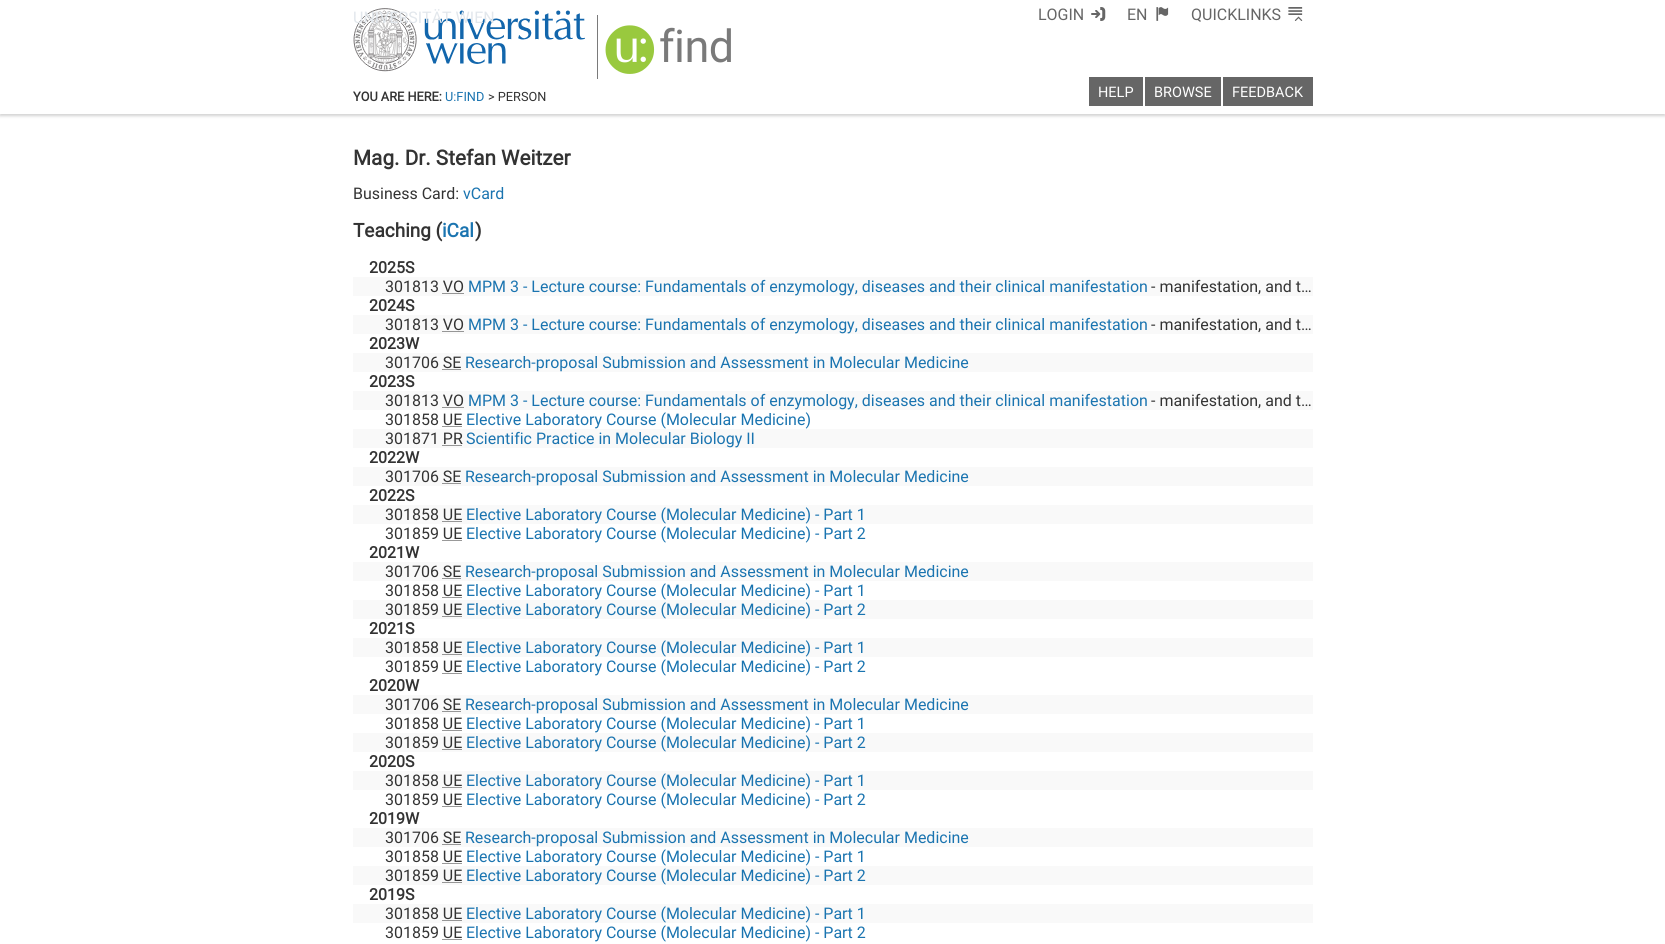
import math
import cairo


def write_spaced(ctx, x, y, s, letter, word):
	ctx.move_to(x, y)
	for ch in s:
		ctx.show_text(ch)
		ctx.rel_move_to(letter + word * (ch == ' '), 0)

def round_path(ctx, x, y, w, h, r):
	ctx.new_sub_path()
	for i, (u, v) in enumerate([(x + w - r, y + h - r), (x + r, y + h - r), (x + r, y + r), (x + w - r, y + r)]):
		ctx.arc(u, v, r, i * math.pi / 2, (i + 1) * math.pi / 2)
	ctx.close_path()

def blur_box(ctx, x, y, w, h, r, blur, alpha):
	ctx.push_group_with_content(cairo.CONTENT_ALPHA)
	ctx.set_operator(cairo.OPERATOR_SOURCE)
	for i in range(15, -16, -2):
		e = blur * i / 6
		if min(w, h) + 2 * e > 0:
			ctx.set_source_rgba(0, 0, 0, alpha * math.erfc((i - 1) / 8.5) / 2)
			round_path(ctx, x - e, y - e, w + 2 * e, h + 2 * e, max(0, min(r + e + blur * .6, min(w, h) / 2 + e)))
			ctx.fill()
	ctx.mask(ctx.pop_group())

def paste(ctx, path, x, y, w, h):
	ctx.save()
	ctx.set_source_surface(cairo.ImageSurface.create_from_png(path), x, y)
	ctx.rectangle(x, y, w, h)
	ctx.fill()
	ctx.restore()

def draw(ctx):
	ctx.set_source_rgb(1, 1, 1)
	ctx.paint()
	ctx.set_source_rgb(0, 0, 0)
	blur_box(ctx, 0, 2, 1665, 114, 0, 1.5, 0.18)
	ctx.set_source_rgb(1, 1, 1)
	ctx.rectangle(0, 0, 1665, 114)
	ctx.fill()
	paste(ctx, 'media/1.png', 353, 8, 232, 64)
	ctx.select_font_face('Roboto')
	ctx.set_font_size(16)
	ctx.set_source_rgb(0.886, 0.906, 0.925)
	ctx.move_to(353, 23)
	ctx.show_text('UNIVERSITÄT WIEN')
	ctx.set_source_rgb(0.478, 0.478, 0.478)
	ctx.rectangle(597, 15, 1, 64)
	ctx.fill()
	paste(ctx, 'media/2.png', 605, 25, 50, 49)
	ctx.set_font_size(45)
	write_spaced(ctx, 659, 62, 'find', -0.5, 0)
	ctx.set_font_size(16)
	ctx.set_source_rgb(0.4, 0.4, 0.4)
	ctx.move_to(1038, 20)
	ctx.show_text('LOGIN')
	paste(ctx, 'media/3.png', 1091, 7, 15, 14)
	ctx.move_to(1127, 20)
	ctx.show_text('EN')
	paste(ctx, 'media/4.png', 1156, 7, 13, 14)
	ctx.move_to(1191, 20)
	ctx.show_text('QUICKLINKS')
	paste(ctx, 'media/5.png', 1288, 7, 15, 14)
	ctx.rectangle(1089, 77, 54, 29)
	ctx.fill()
	ctx.set_font_size(14.5)
	ctx.set_source_rgb(1, 1, 1)
	ctx.move_to(1098, 97)
	ctx.show_text('HELP')
	ctx.set_source_rgb(0.4, 0.4, 0.4)
	ctx.rectangle(1145, 77, 76, 29)
	ctx.fill()
	ctx.set_source_rgb(1, 1, 1)
	ctx.move_to(1154, 97)
	ctx.show_text('BROWSE')
	ctx.set_source_rgb(0.4, 0.4, 0.4)
	ctx.rectangle(1223, 77, 90, 29)
	ctx.fill()
	ctx.set_source_rgb(1, 1, 1)
	ctx.move_to(1232, 97)
	ctx.show_text('FEEDBACK')
	ctx.select_font_face('Roboto', cairo.FONT_SLANT_NORMAL, cairo.FONT_WEIGHT_BOLD)
	ctx.set_font_size(12.75)
	ctx.set_source_rgb(0.2, 0.2, 0.2)
	ctx.move_to(353, 101)
	ctx.show_text('YOU ARE HERE:')
	ctx.select_font_face('Roboto')
	ctx.set_source_rgb(0.102, 0.455, 0.69)
	ctx.move_to(445, 101)
	ctx.show_text('U:FIND')
	ctx.set_source_rgb(0.2, 0.2, 0.2)
	ctx.move_to(488, 101)
	ctx.show_text('> PERSON')
	ctx.select_font_face('Roboto', cairo.FONT_SLANT_NORMAL, cairo.FONT_WEIGHT_BOLD)
	ctx.set_font_size(20.75)
	ctx.move_to(353, 165)
	ctx.show_text('Mag. Dr. Stefan Weitzer')
	ctx.select_font_face('Roboto')
	ctx.set_font_size(16)
	ctx.move_to(353, 199)
	ctx.show_text('Business Card:')
	ctx.set_source_rgb(0.102, 0.455, 0.69)
	ctx.move_to(463, 199)
	ctx.show_text('vCard')
	ctx.select_font_face('Roboto', cairo.FONT_SLANT_NORMAL, cairo.FONT_WEIGHT_BOLD)
	ctx.set_font_size(19)
	ctx.set_source_rgb(0.2, 0.2, 0.2)
	ctx.move_to(353, 237)
	ctx.show_text('Teaching (')
	ctx.set_source_rgb(0.102, 0.455, 0.69)
	ctx.move_to(442, 237)
	ctx.show_text('iCal')
	ctx.set_source_rgb(0.2, 0.2, 0.2)
	ctx.move_to(475, 237)
	ctx.show_text(')')
	ctx.set_font_size(16)
	ctx.move_to(369, 273)
	ctx.show_text('2025S')
	ctx.set_source_rgb(0.973, 0.973, 0.973)
	ctx.rectangle(353, 277, 960, 19)
	ctx.fill()
	ctx.select_font_face('Roboto')
	ctx.set_source_rgb(0.2, 0.2, 0.2)
	ctx.move_to(385, 292)
	ctx.show_text('301813 VO')
	ctx.set_source_rgb(0.102, 0.455, 0.69)
	ctx.move_to(468, 292)
	ctx.show_text('MPM 3 - Lecture course: Fundamentals of enzymology, diseases and their clinical manifestation')
	ctx.set_source_rgb(0.2, 0.2, 0.2)
	ctx.move_to(1151, 292)
	ctx.show_text('- manifestation, and t…')
	ctx.new_path()
	ctx.move_to(442.5, 293.5)
	ctx.line_to(463.5, 293.5)
	ctx.set_line_width(1)
	ctx.set_dash([1, 1])
	ctx.stroke()
	ctx.select_font_face('Roboto', cairo.FONT_SLANT_NORMAL, cairo.FONT_WEIGHT_BOLD)
	ctx.move_to(369, 311)
	ctx.show_text('2024S')
	ctx.set_source_rgb(0.973, 0.973, 0.973)
	ctx.rectangle(353, 315, 960, 19)
	ctx.fill()
	ctx.select_font_face('Roboto')
	ctx.set_source_rgb(0.2, 0.2, 0.2)
	ctx.move_to(385, 330)
	ctx.show_text('301813 VO')
	ctx.set_source_rgb(0.102, 0.455, 0.69)
	ctx.move_to(468, 330)
	ctx.show_text('MPM 3 - Lecture course: Fundamentals of enzymology, diseases and their clinical manifestation')
	ctx.set_source_rgb(0.2, 0.2, 0.2)
	ctx.move_to(1151, 330)
	ctx.show_text('- manifestation, and t…')
	ctx.new_path()
	ctx.move_to(442.5, 331.5)
	ctx.line_to(463.5, 331.5)
	ctx.stroke()
	ctx.select_font_face('Roboto', cairo.FONT_SLANT_NORMAL, cairo.FONT_WEIGHT_BOLD)
	ctx.move_to(369, 349)
	ctx.show_text('2023W')
	ctx.set_source_rgb(0.973, 0.973, 0.973)
	ctx.rectangle(353, 353, 960, 19)
	ctx.fill()
	ctx.select_font_face('Roboto')
	ctx.set_source_rgb(0.2, 0.2, 0.2)
	ctx.move_to(385, 368)
	ctx.show_text('301706 SE')
	ctx.set_source_rgb(0.102, 0.455, 0.69)
	ctx.move_to(465, 368)
	ctx.show_text('Research-proposal Submission and Assessment in Molecular Medicine')
	ctx.new_path()
	ctx.move_to(442.5, 369.5)
	ctx.line_to(461, 369.5)
	ctx.set_source_rgb(0.2, 0.2, 0.2)
	ctx.stroke()
	ctx.select_font_face('Roboto', cairo.FONT_SLANT_NORMAL, cairo.FONT_WEIGHT_BOLD)
	ctx.move_to(369, 387)
	ctx.show_text('2023S')
	ctx.set_source_rgb(0.973, 0.973, 0.973)
	ctx.rectangle(353, 391, 960, 19)
	ctx.fill()
	ctx.select_font_face('Roboto')
	ctx.set_source_rgb(0.2, 0.2, 0.2)
	ctx.move_to(385, 406)
	ctx.show_text('301813 VO')
	ctx.set_source_rgb(0.102, 0.455, 0.69)
	ctx.move_to(468, 406)
	ctx.show_text('MPM 3 - Lecture course: Fundamentals of enzymology, diseases and their clinical manifestation')
	ctx.set_source_rgb(0.2, 0.2, 0.2)
	ctx.move_to(1151, 406)
	ctx.show_text('- manifestation, and t…')
	ctx.new_path()
	ctx.move_to(442.5, 407.5)
	ctx.line_to(463.5, 407.5)
	ctx.stroke()
	ctx.move_to(385, 425)
	ctx.show_text('301858 UE')
	ctx.set_source_rgb(0.102, 0.455, 0.69)
	ctx.move_to(466, 425)
	ctx.show_text('Elective Laboratory Course (Molecular Medicine)')
	ctx.new_path()
	ctx.move_to(442.5, 426.5)
	ctx.line_to(462, 426.5)
	ctx.set_source_rgb(0.2, 0.2, 0.2)
	ctx.stroke()
	ctx.set_source_rgb(0.973, 0.973, 0.973)
	ctx.rectangle(353, 429, 960, 19)
	ctx.fill()
	ctx.set_source_rgb(0.2, 0.2, 0.2)
	ctx.move_to(385, 444)
	ctx.show_text('301871 PR')
	ctx.set_source_rgb(0.102, 0.455, 0.69)
	ctx.move_to(466, 444)
	ctx.show_text('Scientific Practice in Molecular Biology II')
	ctx.new_path()
	ctx.move_to(442.5, 445.5)
	ctx.line_to(462.5, 445.5)
	ctx.set_source_rgb(0.2, 0.2, 0.2)
	ctx.stroke()
	ctx.select_font_face('Roboto', cairo.FONT_SLANT_NORMAL, cairo.FONT_WEIGHT_BOLD)
	ctx.move_to(369, 463)
	ctx.show_text('2022W')
	ctx.set_source_rgb(0.973, 0.973, 0.973)
	ctx.rectangle(353, 467, 960, 19)
	ctx.fill()
	ctx.select_font_face('Roboto')
	ctx.set_source_rgb(0.2, 0.2, 0.2)
	ctx.move_to(385, 482)
	ctx.show_text('301706 SE')
	ctx.set_source_rgb(0.102, 0.455, 0.69)
	ctx.move_to(465, 482)
	ctx.show_text('Research-proposal Submission and Assessment in Molecular Medicine')
	ctx.new_path()
	ctx.move_to(442.5, 483.5)
	ctx.line_to(461, 483.5)
	ctx.set_source_rgb(0.2, 0.2, 0.2)
	ctx.stroke()
	ctx.select_font_face('Roboto', cairo.FONT_SLANT_NORMAL, cairo.FONT_WEIGHT_BOLD)
	ctx.move_to(369, 501)
	ctx.show_text('2022S')
	ctx.set_source_rgb(0.973, 0.973, 0.973)
	ctx.rectangle(353, 505, 960, 19)
	ctx.fill()
	ctx.select_font_face('Roboto')
	ctx.set_source_rgb(0.2, 0.2, 0.2)
	ctx.move_to(385, 520)
	ctx.show_text('301858 UE')
	ctx.set_source_rgb(0.102, 0.455, 0.69)
	ctx.move_to(466, 520)
	ctx.show_text('Elective Laboratory Course (Molecular Medicine) - Part 1')
	ctx.new_path()
	ctx.move_to(442.5, 521.5)
	ctx.line_to(462, 521.5)
	ctx.set_source_rgb(0.2, 0.2, 0.2)
	ctx.stroke()
	ctx.move_to(385, 539)
	ctx.show_text('301859 UE')
	ctx.set_source_rgb(0.102, 0.455, 0.69)
	ctx.move_to(466, 539)
	ctx.show_text('Elective Laboratory Course (Molecular Medicine) - Part 2')
	ctx.new_path()
	ctx.move_to(442.5, 540.5)
	ctx.line_to(462, 540.5)
	ctx.set_source_rgb(0.2, 0.2, 0.2)
	ctx.stroke()
	ctx.select_font_face('Roboto', cairo.FONT_SLANT_NORMAL, cairo.FONT_WEIGHT_BOLD)
	ctx.move_to(369, 558)
	ctx.show_text('2021W')
	ctx.set_source_rgb(0.973, 0.973, 0.973)
	ctx.rectangle(353, 562, 960, 19)
	ctx.fill()
	ctx.select_font_face('Roboto')
	ctx.set_source_rgb(0.2, 0.2, 0.2)
	ctx.move_to(385, 577)
	ctx.show_text('301706 SE')
	ctx.set_source_rgb(0.102, 0.455, 0.69)
	ctx.move_to(465, 577)
	ctx.show_text('Research-proposal Submission and Assessment in Molecular Medicine')
	ctx.new_path()
	ctx.move_to(442.5, 578.5)
	ctx.line_to(461, 578.5)
	ctx.set_source_rgb(0.2, 0.2, 0.2)
	ctx.stroke()
	ctx.move_to(385, 596)
	ctx.show_text('301858 UE')
	ctx.set_source_rgb(0.102, 0.455, 0.69)
	ctx.move_to(466, 596)
	ctx.show_text('Elective Laboratory Course (Molecular Medicine) - Part 1')
	ctx.new_path()
	ctx.move_to(442.5, 597.5)
	ctx.line_to(462, 597.5)
	ctx.set_source_rgb(0.2, 0.2, 0.2)
	ctx.stroke()
	ctx.set_source_rgb(0.973, 0.973, 0.973)
	ctx.rectangle(353, 600, 960, 19)
	ctx.fill()
	ctx.set_source_rgb(0.2, 0.2, 0.2)
	ctx.move_to(385, 615)
	ctx.show_text('301859 UE')
	ctx.set_source_rgb(0.102, 0.455, 0.69)
	ctx.move_to(466, 615)
	ctx.show_text('Elective Laboratory Course (Molecular Medicine) - Part 2')
	ctx.new_path()
	ctx.move_to(442.5, 616.5)
	ctx.line_to(462, 616.5)
	ctx.set_source_rgb(0.2, 0.2, 0.2)
	ctx.stroke()
	ctx.select_font_face('Roboto', cairo.FONT_SLANT_NORMAL, cairo.FONT_WEIGHT_BOLD)
	ctx.move_to(369, 634)
	ctx.show_text('2021S')
	ctx.set_source_rgb(0.973, 0.973, 0.973)
	ctx.rectangle(353, 638, 960, 19)
	ctx.fill()
	ctx.select_font_face('Roboto')
	ctx.set_source_rgb(0.2, 0.2, 0.2)
	ctx.move_to(385, 653)
	ctx.show_text('301858 UE')
	ctx.set_source_rgb(0.102, 0.455, 0.69)
	ctx.move_to(466, 653)
	ctx.show_text('Elective Laboratory Course (Molecular Medicine) - Part 1')
	ctx.new_path()
	ctx.move_to(442.5, 654.5)
	ctx.line_to(462, 654.5)
	ctx.set_source_rgb(0.2, 0.2, 0.2)
	ctx.stroke()
	ctx.move_to(385, 672)
	ctx.show_text('301859 UE')
	ctx.set_source_rgb(0.102, 0.455, 0.69)
	ctx.move_to(466, 672)
	ctx.show_text('Elective Laboratory Course (Molecular Medicine) - Part 2')
	ctx.new_path()
	ctx.move_to(442.5, 673.5)
	ctx.line_to(462, 673.5)
	ctx.set_source_rgb(0.2, 0.2, 0.2)
	ctx.stroke()
	ctx.select_font_face('Roboto', cairo.FONT_SLANT_NORMAL, cairo.FONT_WEIGHT_BOLD)
	ctx.move_to(369, 691)
	ctx.show_text('2020W')
	ctx.set_source_rgb(0.973, 0.973, 0.973)
	ctx.rectangle(353, 695, 960, 19)
	ctx.fill()
	ctx.select_font_face('Roboto')
	ctx.set_source_rgb(0.2, 0.2, 0.2)
	ctx.move_to(385, 710)
	ctx.show_text('301706 SE')
	ctx.set_source_rgb(0.102, 0.455, 0.69)
	ctx.move_to(465, 710)
	ctx.show_text('Research-proposal Submission and Assessment in Molecular Medicine')
	ctx.new_path()
	ctx.move_to(442.5, 711.5)
	ctx.line_to(461, 711.5)
	ctx.set_source_rgb(0.2, 0.2, 0.2)
	ctx.stroke()
	ctx.move_to(385, 729)
	ctx.show_text('301858 UE')
	ctx.set_source_rgb(0.102, 0.455, 0.69)
	ctx.move_to(466, 729)
	ctx.show_text('Elective Laboratory Course (Molecular Medicine) - Part 1')
	ctx.new_path()
	ctx.move_to(442.5, 730.5)
	ctx.line_to(462, 730.5)
	ctx.set_source_rgb(0.2, 0.2, 0.2)
	ctx.stroke()
	ctx.set_source_rgb(0.973, 0.973, 0.973)
	ctx.rectangle(353, 733, 960, 19)
	ctx.fill()
	ctx.set_source_rgb(0.2, 0.2, 0.2)
	ctx.move_to(385, 748)
	ctx.show_text('301859 UE')
	ctx.set_source_rgb(0.102, 0.455, 0.69)
	ctx.move_to(466, 748)
	ctx.show_text('Elective Laboratory Course (Molecular Medicine) - Part 2')
	ctx.new_path()
	ctx.move_to(442.5, 749.5)
	ctx.line_to(462, 749.5)
	ctx.set_source_rgb(0.2, 0.2, 0.2)
	ctx.stroke()
	ctx.select_font_face('Roboto', cairo.FONT_SLANT_NORMAL, cairo.FONT_WEIGHT_BOLD)
	ctx.move_to(369, 767)
	ctx.show_text('2020S')
	ctx.set_source_rgb(0.973, 0.973, 0.973)
	ctx.rectangle(353, 771, 960, 19)
	ctx.fill()
	ctx.select_font_face('Roboto')
	ctx.set_source_rgb(0.2, 0.2, 0.2)
	ctx.move_to(385, 786)
	ctx.show_text('301858 UE')
	ctx.set_source_rgb(0.102, 0.455, 0.69)
	ctx.move_to(466, 786)
	ctx.show_text('Elective Laboratory Course (Molecular Medicine) - Part 1')
	ctx.new_path()
	ctx.move_to(442.5, 787.5)
	ctx.line_to(462, 787.5)
	ctx.set_source_rgb(0.2, 0.2, 0.2)
	ctx.stroke()
	ctx.move_to(385, 805)
	ctx.show_text('301859 UE')
	ctx.set_source_rgb(0.102, 0.455, 0.69)
	ctx.move_to(466, 805)
	ctx.show_text('Elective Laboratory Course (Molecular Medicine) - Part 2')
	ctx.new_path()
	ctx.move_to(442.5, 806.5)
	ctx.line_to(462, 806.5)
	ctx.set_source_rgb(0.2, 0.2, 0.2)
	ctx.stroke()
	ctx.select_font_face('Roboto', cairo.FONT_SLANT_NORMAL, cairo.FONT_WEIGHT_BOLD)
	ctx.move_to(369, 824)
	ctx.show_text('2019W')
	ctx.set_source_rgb(0.973, 0.973, 0.973)
	ctx.rectangle(353, 828, 960, 19)
	ctx.fill()
	ctx.select_font_face('Roboto')
	ctx.set_source_rgb(0.2, 0.2, 0.2)
	ctx.move_to(385, 843)
	ctx.show_text('301706 SE')
	ctx.set_source_rgb(0.102, 0.455, 0.69)
	ctx.move_to(465, 843)
	ctx.show_text('Research-proposal Submission and Assessment in Molecular Medicine')
	ctx.new_path()
	ctx.move_to(442.5, 844.5)
	ctx.line_to(461, 844.5)
	ctx.set_source_rgb(0.2, 0.2, 0.2)
	ctx.stroke()
	ctx.move_to(385, 862)
	ctx.show_text('301858 UE')
	ctx.set_source_rgb(0.102, 0.455, 0.69)
	ctx.move_to(466, 862)
	ctx.show_text('Elective Laboratory Course (Molecular Medicine) - Part 1')
	ctx.new_path()
	ctx.move_to(442.5, 863.5)
	ctx.line_to(462, 863.5)
	ctx.set_source_rgb(0.2, 0.2, 0.2)
	ctx.stroke()
	ctx.set_source_rgb(0.973, 0.973, 0.973)
	ctx.rectangle(353, 866, 960, 19)
	ctx.fill()
	ctx.set_source_rgb(0.2, 0.2, 0.2)
	ctx.move_to(385, 881)
	ctx.show_text('301859 UE')
	ctx.set_source_rgb(0.102, 0.455, 0.69)
	ctx.move_to(466, 881)
	ctx.show_text('Elective Laboratory Course (Molecular Medicine) - Part 2')
	ctx.new_path()
	ctx.move_to(442.5, 882.5)
	ctx.line_to(462, 882.5)
	ctx.set_source_rgb(0.2, 0.2, 0.2)
	ctx.stroke()
	ctx.select_font_face('Roboto', cairo.FONT_SLANT_NORMAL, cairo.FONT_WEIGHT_BOLD)
	ctx.move_to(369, 900)
	ctx.show_text('2019S')
	ctx.set_source_rgb(0.973, 0.973, 0.973)
	ctx.rectangle(353, 904, 960, 19)
	ctx.fill()
	ctx.select_font_face('Roboto')
	ctx.set_source_rgb(0.2, 0.2, 0.2)
	ctx.move_to(385, 919)
	ctx.show_text('301858 UE')
	ctx.set_source_rgb(0.102, 0.455, 0.69)
	ctx.move_to(466, 919)
	ctx.show_text('Elective Laboratory Course (Molecular Medicine) - Part 1')
	ctx.new_path()
	ctx.move_to(442.5, 920.5)
	ctx.line_to(462, 920.5)
	ctx.set_source_rgb(0.2, 0.2, 0.2)
	ctx.stroke()
	ctx.move_to(385, 938)
	ctx.show_text('301859 UE')
	ctx.set_source_rgb(0.102, 0.455, 0.69)
	ctx.move_to(466, 938)
	ctx.show_text('Elective Laboratory Course (Molecular Medicine) - Part 2')
	ctx.new_path()
	ctx.move_to(442.5, 939.5)
	ctx.line_to(462, 939.5)
	ctx.set_source_rgb(0.2, 0.2, 0.2)
	ctx.stroke()


surface = cairo.ImageSurface(cairo.FORMAT_RGB24, 1665, 944)
ctx = cairo.Context(surface)
options = cairo.FontOptions()
options.set_hint_metrics(cairo.HINT_METRICS_OFF)
options.set_hint_style(cairo.HINT_STYLE_NONE)
ctx.set_font_options(options)
ctx.set_miter_limit(4)
draw(ctx)
surface.write_to_png('image.png')
